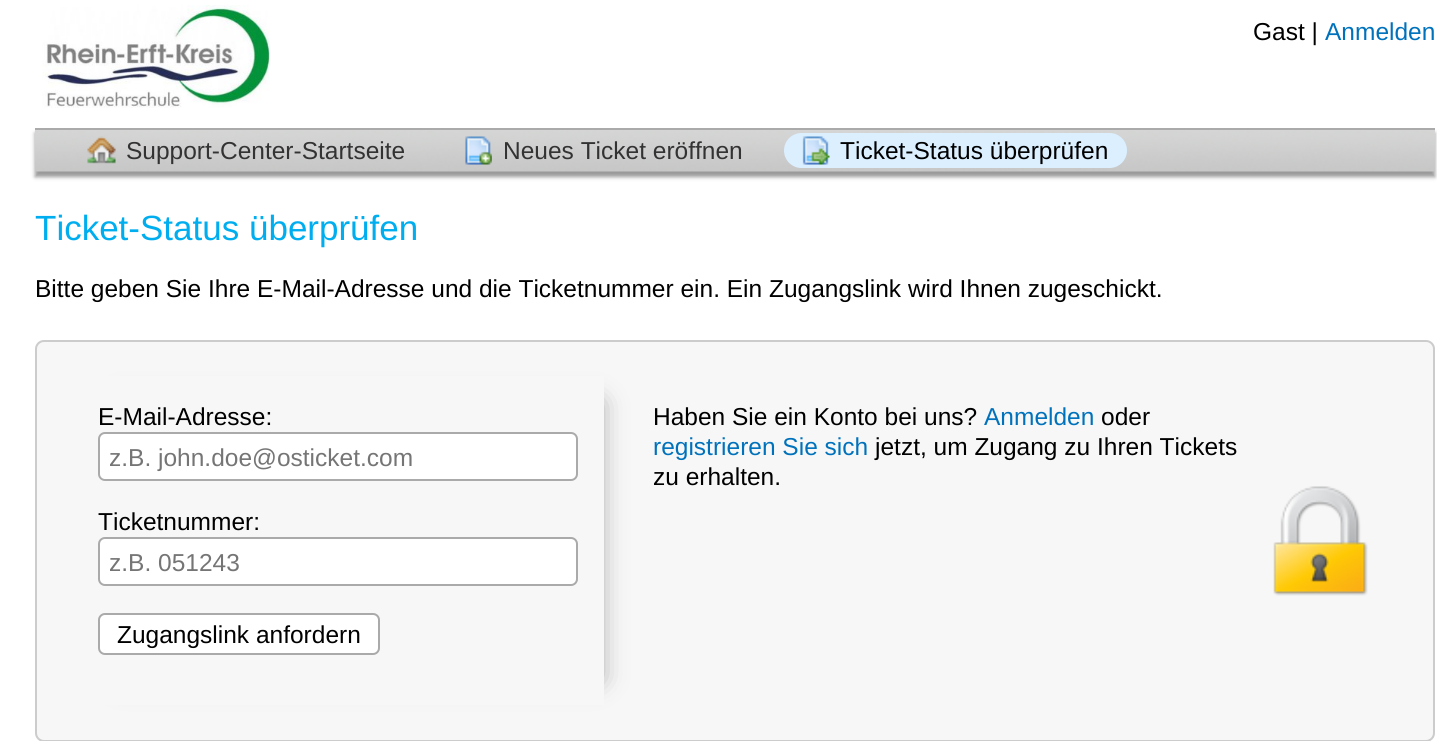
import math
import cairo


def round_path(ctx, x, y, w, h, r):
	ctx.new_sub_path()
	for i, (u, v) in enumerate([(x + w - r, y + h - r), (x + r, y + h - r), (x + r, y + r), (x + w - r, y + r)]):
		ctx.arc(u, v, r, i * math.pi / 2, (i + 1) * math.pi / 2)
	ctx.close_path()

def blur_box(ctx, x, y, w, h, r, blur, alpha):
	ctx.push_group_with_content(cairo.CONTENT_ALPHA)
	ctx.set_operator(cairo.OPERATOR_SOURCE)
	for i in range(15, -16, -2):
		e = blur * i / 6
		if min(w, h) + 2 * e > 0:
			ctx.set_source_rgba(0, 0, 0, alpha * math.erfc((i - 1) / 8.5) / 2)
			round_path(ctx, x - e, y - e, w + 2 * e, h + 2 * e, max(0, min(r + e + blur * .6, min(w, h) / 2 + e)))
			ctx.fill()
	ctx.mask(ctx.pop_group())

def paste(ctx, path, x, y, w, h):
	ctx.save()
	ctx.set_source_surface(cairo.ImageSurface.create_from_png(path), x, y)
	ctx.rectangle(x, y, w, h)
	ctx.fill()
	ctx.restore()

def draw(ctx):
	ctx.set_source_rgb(1, 1, 1)
	ctx.paint()
	paste(ctx, 'media/1.png', 42, 5, 228, 103)
	ctx.select_font_face('Liberation Sans')
	ctx.set_font_size(24.5)
	ctx.set_source_rgb(0, 0, 0)
	ctx.move_to(1253, 40)
	ctx.show_text('Gast |')
	ctx.set_source_rgb(0, 0.447, 0.737)
	ctx.move_to(1325, 40)
	ctx.show_text('Anmelden')
	ctx.set_source_rgb(0, 0, 0)
	blur_box(ctx, 35, 133, 1400, 44, 0, 2, 0.4)
	paste(ctx, 'media/2.png', 35, 130, 1400, 42)
	ctx.set_source_rgb(0.667, 0.667, 0.667)
	ctx.rectangle(35, 128, 1400, 2)
	ctx.fill()
	paste(ctx, 'media/3.png', 87, 136, 29, 28)
	ctx.set_source_rgb(0.2, 0.2, 0.2)
	ctx.move_to(126, 159)
	ctx.show_text('Support-Center-Startseite')
	paste(ctx, 'media/4.png', 465, 136, 27, 29)
	ctx.move_to(503, 159)
	ctx.show_text('Neues Ticket eröffnen')
	ctx.set_source_rgb(0.859, 0.937, 1)
	round_path(ctx, 784, 133, 343, 35, 17.5)
	ctx.fill()
	paste(ctx, 'media/5.png', 802, 136, 28, 29)
	ctx.set_source_rgb(0, 0, 0)
	ctx.move_to(840, 159)
	ctx.show_text('Ticket-Status überprüfen')
	ctx.set_font_size(35)
	ctx.set_source_rgb(0, 0.682, 0.937)
	ctx.move_to(35, 240)
	ctx.show_text('Ticket-Status überprüfen')
	ctx.set_font_size(24.5)
	ctx.set_source_rgb(0, 0, 0)
	ctx.move_to(35, 297)
	ctx.show_text('Bitte geben Sie Ihre E-Mail-Adresse und die Ticketnummer ein. Ein Zugangslink wird Ihnen zugeschickt.')
	ctx.set_source_rgb(0.965, 0.965, 0.965)
	round_path(ctx, 35, 340, 1400, 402, 9)
	ctx.fill()
	paste(ctx, 'media/6.png', 1273, 486, 95, 110)
	round_path(ctx, 36, 341, 1398, 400, 8)
	ctx.set_source_rgb(0.8, 0.8, 0.8)
	ctx.stroke()
	ctx.save()
	ctx.set_fill_rule(cairo.FILL_RULE_EVEN_ODD)
	ctx.new_path()
	ctx.move_to(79, 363)
	ctx.line_to(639, 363)
	ctx.line_to(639, 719)
	ctx.line_to(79, 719)
	ctx.close_path()
	ctx.move_to(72, 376)
	ctx.line_to(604, 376)
	ctx.line_to(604, 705)
	ctx.line_to(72, 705)
	ctx.close_path()
	ctx.clip()
	ctx.set_source_rgb(0, 0, 0)
	blur_box(ctx, 119, 403, 480, 276, 0, 13, 0.4)
	ctx.restore()
	ctx.set_source_rgb(0, 0, 0)
	ctx.move_to(98, 425)
	ctx.show_text('E-Mail-Adresse:')
	ctx.set_source_rgb(1, 1, 1)
	round_path(ctx, 99, 433, 478, 47, 6)
	ctx.fill_preserve()
	ctx.set_source_rgb(0.667, 0.667, 0.667)
	ctx.stroke()
	ctx.set_source_rgb(0.459, 0.459, 0.459)
	ctx.move_to(109, 466)
	ctx.show_text('z.B. john.doe@osticket.com')
	ctx.set_source_rgb(0, 0, 0)
	ctx.move_to(98, 530)
	ctx.show_text('Ticketnummer:')
	ctx.set_source_rgb(1, 1, 1)
	round_path(ctx, 99, 538, 478, 47, 6)
	ctx.fill_preserve()
	ctx.set_source_rgb(0.667, 0.667, 0.667)
	ctx.stroke()
	ctx.set_source_rgb(0.459, 0.459, 0.459)
	ctx.move_to(109, 571)
	ctx.show_text('z.B. 051243')
	ctx.set_source_rgb(1, 1, 1)
	round_path(ctx, 99, 614, 280, 40, 6)
	ctx.fill_preserve()
	ctx.set_source_rgb(0.667, 0.667, 0.667)
	ctx.stroke()
	ctx.set_source_rgb(0, 0, 0)
	ctx.move_to(117, 643)
	ctx.show_text('Zugangslink anfordern')
	ctx.move_to(653, 425)
	ctx.show_text('Haben Sie ein Konto bei uns?')
	ctx.set_source_rgb(0, 0.447, 0.737)
	ctx.move_to(984, 425)
	ctx.show_text('Anmelden')
	ctx.set_source_rgb(0, 0, 0)
	ctx.move_to(1101, 425)
	ctx.show_text('oder')
	ctx.set_source_rgb(0, 0.447, 0.737)
	ctx.move_to(653, 455)
	ctx.show_text('registrieren Sie sich')
	ctx.set_source_rgb(0, 0, 0)
	ctx.move_to(875, 455)
	ctx.show_text('jetzt, um Zugang zu Ihren Tickets')
	ctx.move_to(653, 485)
	ctx.show_text('zu erhalten.')


surface = cairo.ImageSurface(cairo.FORMAT_RGB24, 1437, 741)
ctx = cairo.Context(surface)
options = cairo.FontOptions()
options.set_hint_metrics(cairo.HINT_METRICS_OFF)
options.set_hint_style(cairo.HINT_STYLE_NONE)
ctx.set_font_options(options)
ctx.set_miter_limit(4)
draw(ctx)
surface.write_to_png('image.png')
